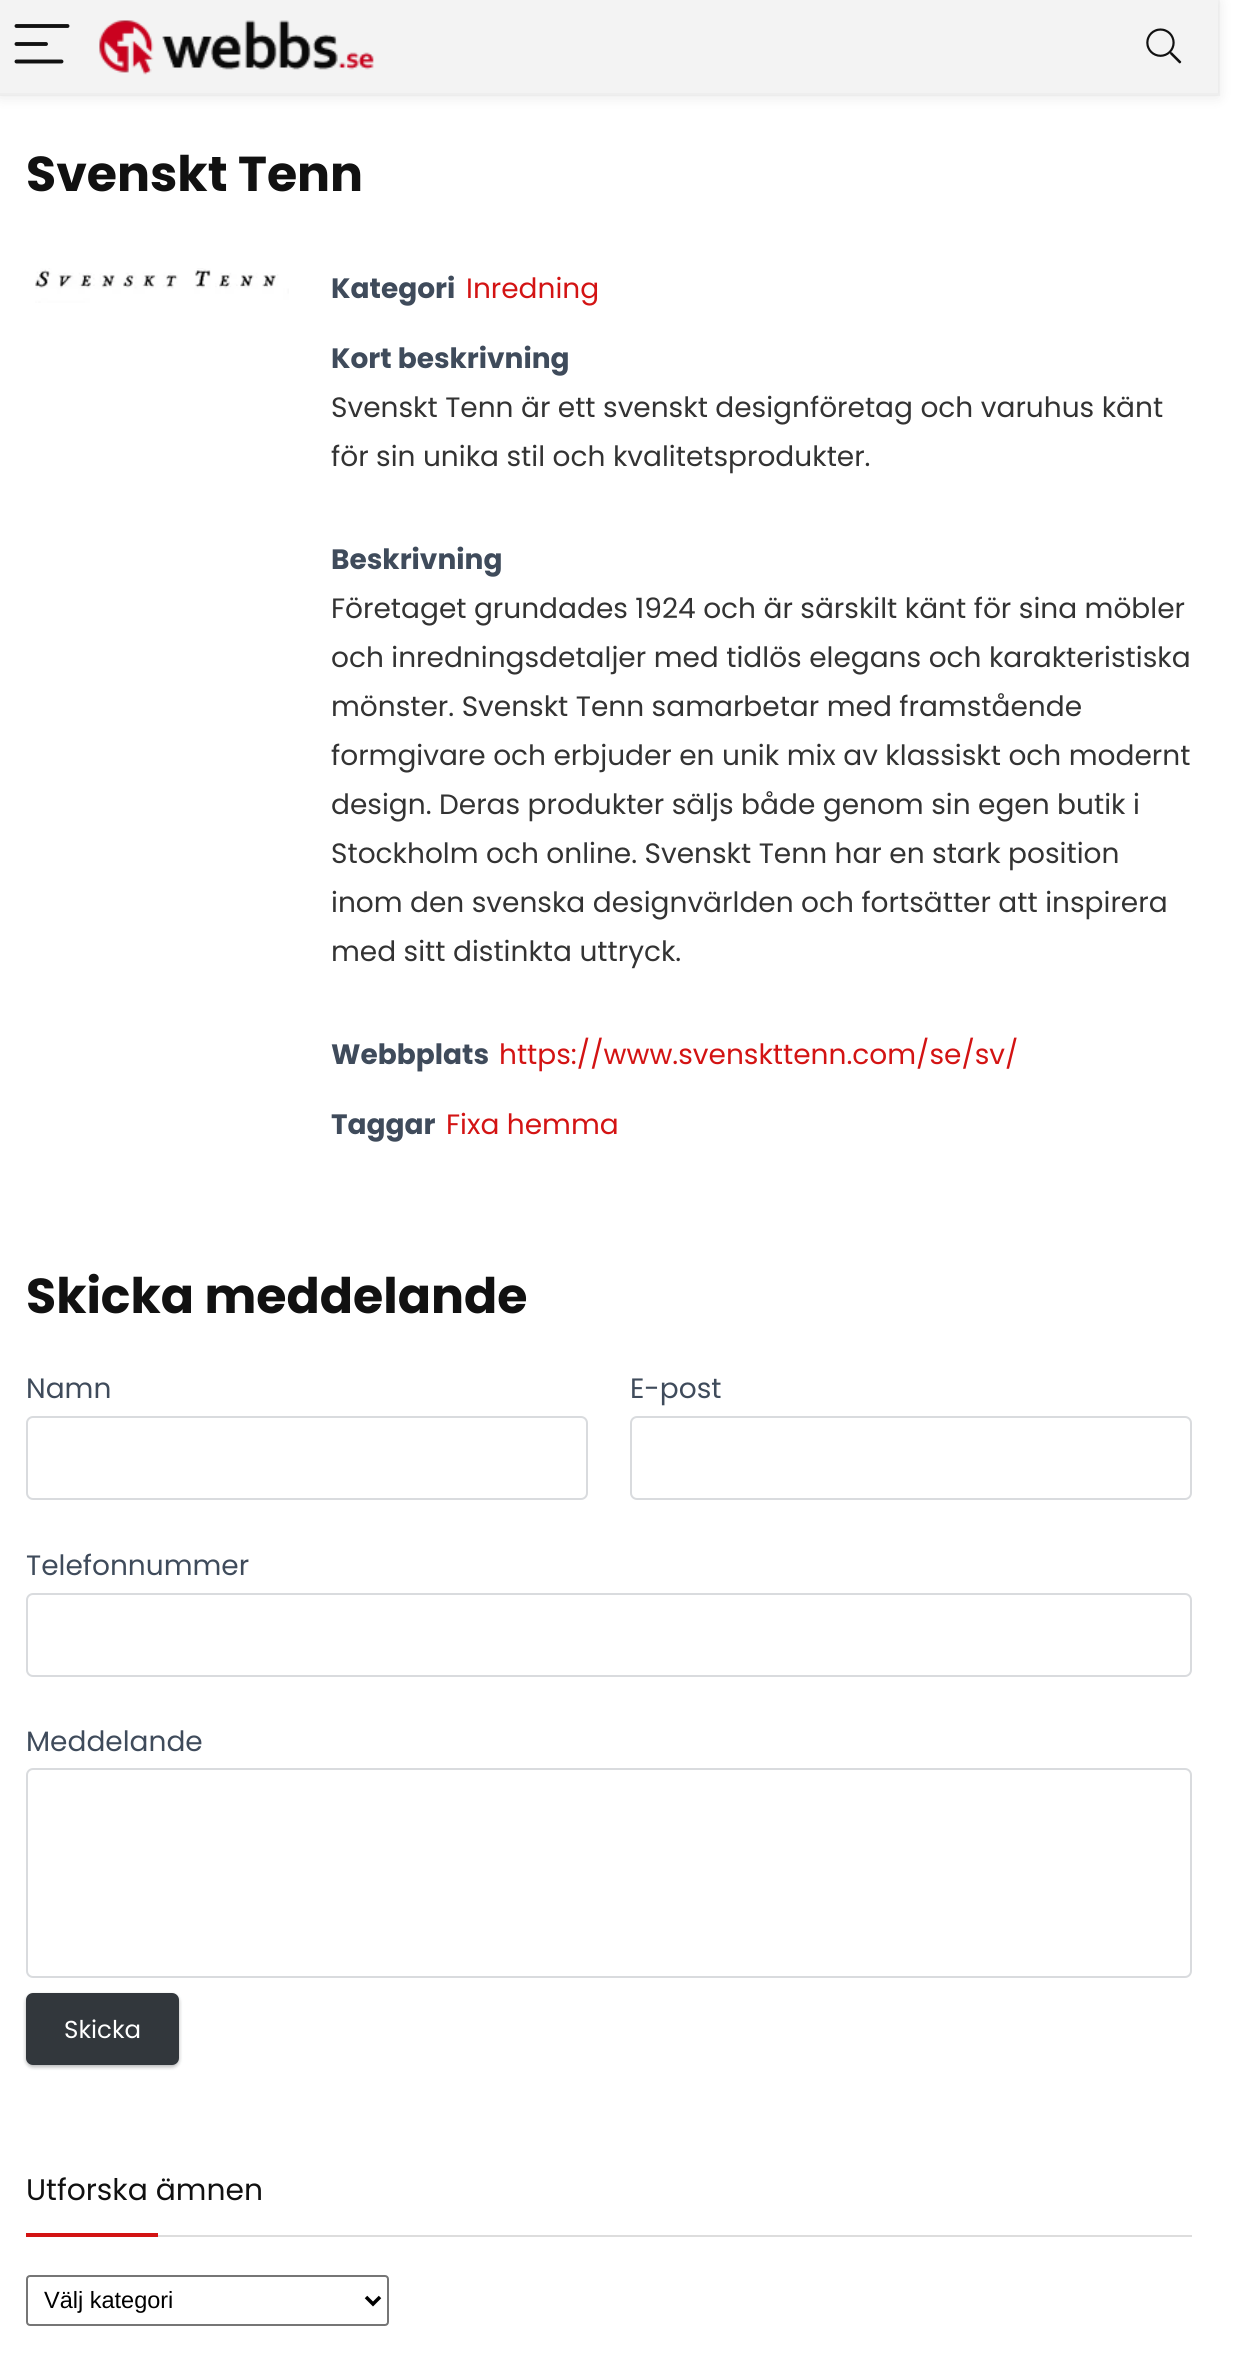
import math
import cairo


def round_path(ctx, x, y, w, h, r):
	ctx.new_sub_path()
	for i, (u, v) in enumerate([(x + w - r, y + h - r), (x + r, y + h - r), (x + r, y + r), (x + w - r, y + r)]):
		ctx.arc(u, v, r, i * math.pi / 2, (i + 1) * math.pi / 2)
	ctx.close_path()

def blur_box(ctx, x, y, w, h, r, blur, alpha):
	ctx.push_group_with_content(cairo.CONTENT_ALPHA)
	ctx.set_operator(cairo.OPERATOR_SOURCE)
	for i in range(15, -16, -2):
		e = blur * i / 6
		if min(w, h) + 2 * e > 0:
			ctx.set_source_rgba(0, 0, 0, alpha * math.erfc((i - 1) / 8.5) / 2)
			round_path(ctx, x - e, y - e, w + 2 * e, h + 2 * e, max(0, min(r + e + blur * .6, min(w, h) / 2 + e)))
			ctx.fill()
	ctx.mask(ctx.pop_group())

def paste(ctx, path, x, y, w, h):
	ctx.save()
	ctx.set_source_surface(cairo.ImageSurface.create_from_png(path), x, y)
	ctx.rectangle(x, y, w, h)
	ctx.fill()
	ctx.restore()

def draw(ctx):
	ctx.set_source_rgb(1, 1, 1)
	ctx.paint()
	ctx.rectangle(-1, -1, 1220, 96)
	ctx.set_source_rgba(0, 0, 0, 0.03)
	ctx.stroke()
	ctx.set_source_rgb(0, 0, 0)
	blur_box(ctx, 0, 2, 1218, 94, 0, 7, 0.1)
	ctx.set_source_rgb(0.933, 0.933, 0.933)
	ctx.rectangle(0, 93, 1218, 2)
	ctx.fill()
	ctx.set_source_rgb(0.953, 0.953, 0.953)
	ctx.rectangle(0, 0, 1218, 93)
	ctx.fill()
	ctx.new_path()
	ctx.move_to(16.5, 26)
	ctx.line_to(67.5, 26)
	ctx.move_to(16.5, 44)
	ctx.line_to(46, 44)
	ctx.move_to(16.5, 61.5)
	ctx.line_to(61.5, 61.5)
	ctx.set_source_rgb(0.067, 0.067, 0.067)
	ctx.set_line_width(3.9)
	ctx.set_line_cap(cairo.LINE_CAP_ROUND)
	ctx.stroke()
	paste(ctx, 'media/1.png', 99, 20, 275, 55)
	paste(ctx, 'media/2.png', 1146, 28, 36, 36)
	ctx.select_font_face('Poppins', cairo.FONT_SLANT_NORMAL, cairo.FONT_WEIGHT_BOLD)
	ctx.set_font_size(49)
	ctx.move_to(26, 191)
	ctx.show_text('Svenskt Tenn')
	paste(ctx, 'media/3.png', 35, 268, 254, 35)
	ctx.set_font_size(28)
	ctx.set_source_rgb(0.247, 0.294, 0.357)
	ctx.move_to(331, 298)
	ctx.show_text('Kategori')
	ctx.select_font_face('Poppins')
	ctx.set_source_rgb(0.827, 0.078, 0.078)
	ctx.move_to(466, 298)
	ctx.show_text('Inredning')
	ctx.select_font_face('Poppins', cairo.FONT_SLANT_NORMAL, cairo.FONT_WEIGHT_BOLD)
	ctx.set_source_rgb(0.247, 0.294, 0.357)
	ctx.move_to(331, 368)
	ctx.show_text('Kort beskrivning')
	ctx.select_font_face('Poppins')
	ctx.set_source_rgb(0.2, 0.2, 0.2)
	ctx.move_to(331, 417)
	ctx.show_text('Svenskt Tenn är ett svenskt designföretag och varuhus känt')
	ctx.move_to(331, 466)
	ctx.show_text('för sin unika stil och kvalitetsprodukter.')
	ctx.select_font_face('Poppins', cairo.FONT_SLANT_NORMAL, cairo.FONT_WEIGHT_BOLD)
	ctx.set_source_rgb(0.247, 0.294, 0.357)
	ctx.move_to(331, 569)
	ctx.show_text('Beskrivning')
	ctx.select_font_face('Poppins')
	ctx.set_source_rgb(0.2, 0.2, 0.2)
	for x, y, s in [
		(331, 618, 'Företaget grundades 1924 och är särskilt känt för sina möbler'),
		(331, 667, 'och inredningsdetaljer med tidlös elegans och karakteristiska'),
		(331, 716, 'mönster. Svenskt Tenn samarbetar med framstående'),
		(331, 765, 'formgivare och erbjuder en unik mix av klassiskt och modernt'),
		(331, 814, 'design. Deras produkter säljs både genom sin egen butik i'),
		(331, 863, 'Stockholm och online. Svenskt Tenn har en stark position'),
		(331, 912, 'inom den svenska designvärlden och fortsätter att inspirera'),
		(331, 961, 'med sitt distinkta uttryck.'),
	]:
		ctx.move_to(x, y)
		ctx.show_text(s)
	ctx.select_font_face('Poppins', cairo.FONT_SLANT_NORMAL, cairo.FONT_WEIGHT_BOLD)
	ctx.set_source_rgb(0.247, 0.294, 0.357)
	ctx.move_to(331, 1064)
	ctx.show_text('Webbplats')
	ctx.select_font_face('Poppins')
	ctx.set_source_rgb(0.827, 0.078, 0.078)
	ctx.move_to(499, 1064)
	ctx.show_text('https://www.svenskttenn.com/se/sv/')
	ctx.select_font_face('Poppins', cairo.FONT_SLANT_NORMAL, cairo.FONT_WEIGHT_BOLD)
	ctx.set_source_rgb(0.247, 0.294, 0.357)
	ctx.move_to(331, 1134)
	ctx.show_text('Taggar')
	ctx.select_font_face('Poppins')
	ctx.set_source_rgb(0.827, 0.078, 0.078)
	ctx.move_to(446, 1134)
	ctx.show_text('Fixa hemma')
	ctx.select_font_face('Poppins', cairo.FONT_SLANT_NORMAL, cairo.FONT_WEIGHT_BOLD)
	ctx.set_font_size(49)
	ctx.set_source_rgb(0.067, 0.067, 0.067)
	ctx.move_to(26, 1313)
	ctx.show_text('Skicka meddelande')
	ctx.select_font_face('Poppins')
	ctx.set_font_size(28)
	ctx.set_source_rgb(0.247, 0.294, 0.357)
	ctx.move_to(26, 1398)
	ctx.show_text('Namn')
	round_path(ctx, 27, 1417, 560, 82, 6)
	ctx.set_source_rgb(0.851, 0.859, 0.871)
	ctx.set_line_width(2)
	ctx.set_line_cap(cairo.LINE_CAP_BUTT)
	ctx.stroke()
	ctx.set_source_rgb(0.247, 0.294, 0.357)
	ctx.move_to(630, 1398)
	ctx.show_text('E-post')
	round_path(ctx, 631, 1417, 560, 82, 6)
	ctx.set_source_rgb(0.851, 0.859, 0.871)
	ctx.stroke()
	ctx.set_source_rgb(0.247, 0.294, 0.357)
	ctx.move_to(26, 1575)
	ctx.show_text('Telefonnummer')
	round_path(ctx, 27, 1594, 1164, 82, 6)
	ctx.set_source_rgb(0.851, 0.859, 0.871)
	ctx.stroke()
	ctx.set_source_rgb(0.247, 0.294, 0.357)
	ctx.move_to(26, 1751)
	ctx.show_text('Meddelande')
	round_path(ctx, 27, 1769, 1164, 208, 6)
	ctx.set_source_rgb(0.851, 0.859, 0.871)
	ctx.stroke()
	ctx.set_source_rgb(0, 0, 0)
	blur_box(ctx, 26, 1995, 153, 72, 7, 2, 0.08)
	ctx.set_source_rgb(0.235, 0.251, 0.263)
	blur_box(ctx, 26, 1995, 153, 72, 7, 2, 0.3)
	ctx.set_source_rgb(0.196, 0.216, 0.235)
	round_path(ctx, 27, 1994, 151, 70, 6)
	ctx.fill_preserve()
	ctx.stroke()
	ctx.set_font_size(24.5)
	ctx.set_source_rgb(1, 1, 1)
	ctx.move_to(64, 2038)
	ctx.show_text('Skicka')
	ctx.set_source_rgb(0.867, 0.867, 0.867)
	ctx.rectangle(158, 2235, 1034, 2)
	ctx.fill()
	ctx.set_font_size(29.75)
	ctx.set_source_rgb(0.067, 0.067, 0.067)
	ctx.move_to(26, 2200)
	ctx.show_text('Utforska ämnen')
	ctx.set_source_rgb(0.827, 0.078, 0.078)
	ctx.rectangle(26, 2233, 132, 4)
	ctx.fill()
	round_path(ctx, 27, 2276, 361, 49, 3)
	ctx.set_source_rgb(0.463, 0.463, 0.463)
	ctx.stroke()
	ctx.new_path()
	ctx.move_to(366, 2297)
	ctx.line_to(373, 2304)
	ctx.line_to(380, 2297)
	ctx.set_source_rgb(0, 0, 0)
	ctx.set_line_width(3.5)
	ctx.stroke()
	ctx.select_font_face('Liberation Sans')
	ctx.set_font_size(23.5)
	ctx.move_to(44, 2308)
	ctx.show_text('Välj kategori')


surface = cairo.ImageSurface(cairo.FORMAT_RGB24, 1244, 2353)
ctx = cairo.Context(surface)
options = cairo.FontOptions()
options.set_hint_metrics(cairo.HINT_METRICS_OFF)
options.set_hint_style(cairo.HINT_STYLE_NONE)
ctx.set_font_options(options)
ctx.set_miter_limit(4)
draw(ctx)
surface.write_to_png('image.png')
